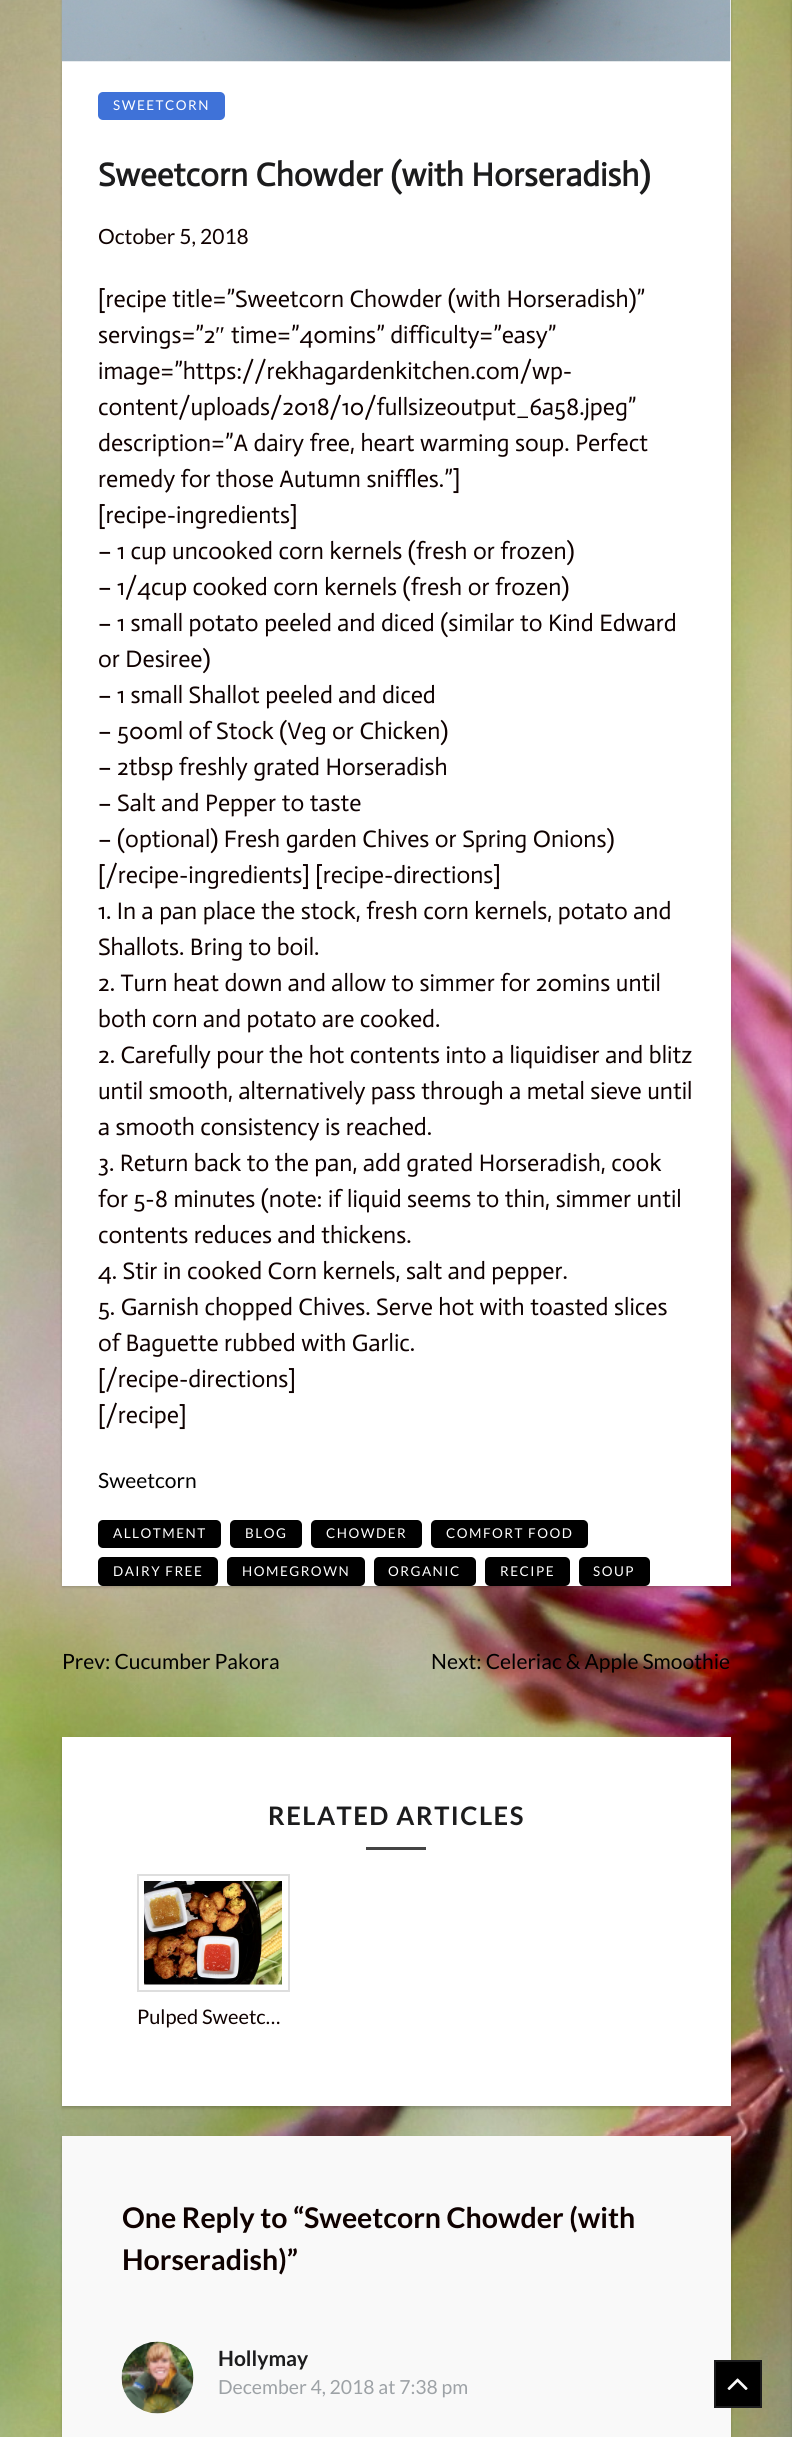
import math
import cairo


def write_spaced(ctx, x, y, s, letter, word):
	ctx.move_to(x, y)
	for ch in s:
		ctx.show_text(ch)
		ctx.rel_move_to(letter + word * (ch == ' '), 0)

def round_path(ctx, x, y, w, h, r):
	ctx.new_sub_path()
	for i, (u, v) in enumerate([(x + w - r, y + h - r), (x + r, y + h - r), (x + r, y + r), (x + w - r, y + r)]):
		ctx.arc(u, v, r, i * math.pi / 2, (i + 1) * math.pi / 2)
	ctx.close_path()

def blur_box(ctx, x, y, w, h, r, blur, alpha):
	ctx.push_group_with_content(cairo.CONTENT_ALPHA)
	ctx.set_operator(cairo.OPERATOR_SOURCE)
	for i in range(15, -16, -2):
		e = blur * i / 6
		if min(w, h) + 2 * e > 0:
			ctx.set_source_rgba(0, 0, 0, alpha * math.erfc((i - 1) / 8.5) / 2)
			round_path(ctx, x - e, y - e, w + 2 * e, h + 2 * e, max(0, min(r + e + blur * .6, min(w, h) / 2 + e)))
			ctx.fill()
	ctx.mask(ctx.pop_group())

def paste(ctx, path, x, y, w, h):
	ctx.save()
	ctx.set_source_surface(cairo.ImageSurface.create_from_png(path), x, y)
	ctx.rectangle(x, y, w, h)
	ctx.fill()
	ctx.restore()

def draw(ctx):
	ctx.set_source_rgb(1, 1, 1)
	ctx.paint()
	paste(ctx, 'media/1.png', 0, 0, 792, 2437)
	ctx.set_source_rgb(0, 0, 0)
	blur_box(ctx, 62, -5, 669, 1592, 0, 1.5, 0.2)
	ctx.set_source_rgb(1, 1, 1)
	ctx.rectangle(62, 0, 669, 1586)
	ctx.fill()
	paste(ctx, 'media/2.png', 61, 0, 670, 62)
	ctx.set_source_rgb(0.247, 0.447, 0.847)
	round_path(ctx, 98, 92, 127, 28, 5)
	ctx.fill()
	ctx.select_font_face('Lato')
	ctx.set_font_size(13.5)
	ctx.set_source_rgb(1, 1, 1)
	write_spaced(ctx, 113, 110, 'SWEETCORN', 1.5, 0)
	ctx.select_font_face('Actor', cairo.FONT_SLANT_NORMAL, cairo.FONT_WEIGHT_BOLD)
	ctx.set_font_size(33)
	ctx.set_source_rgb(0.11, 0.11, 0.114)
	ctx.move_to(98, 186)
	ctx.show_text('Sweetcorn Chowder (with Horseradish)')
	ctx.select_font_face('Lato')
	ctx.set_font_size(21)
	ctx.set_source_rgb(0.059, 0.004, 0)
	ctx.move_to(98, 244)
	ctx.show_text('October 5, 2018')
	ctx.select_font_face('Actor')
	ctx.set_font_size(24)
	ctx.move_to(98, 307)
	ctx.show_text('[recipe title=”Sweetcorn Chowder (with Horseradish)”')
	ctx.move_to(98, 343)
	ctx.show_text('servings=”2')
	ctx.select_font_face('Liberation Serif')
	ctx.move_to(215, 343)
	ctx.show_text('″')
	ctx.select_font_face('Actor')
	for x, y, s in [
		(231, 343, 'time=”40mins” difficulty=”easy”'),
		(98, 379, 'image=”https://rekhagardenkitchen.com/wp-'),
		(98, 415, 'content/uploads/2018/10/fullsizeoutput_6a58.jpeg”'),
		(98, 451, 'description=”A dairy free, heart warming soup. Perfect'),
		(98, 487, 'remedy for those Autumn sniffles.”]'),
		(98, 523, '[recipe-ingredients]'),
		(98, 559, '– 1 cup uncooked corn kernels (fresh or frozen)'),
		(98, 595, '– 1/4cup cooked corn kernels (fresh or frozen)'),
		(98, 631, '– 1 small potato peeled and diced (similar to Kind Edward'),
		(98, 667, 'or Desiree)'),
		(98, 703, '– 1 small Shallot peeled and diced'),
		(98, 739, '– 500ml of Stock (Veg or Chicken)'),
		(98, 775, '– 2tbsp freshly grated Horseradish'),
		(98, 811, '– Salt and Pepper to taste'),
		(98, 847, '– (optional) Fresh garden Chives or Spring Onions)'),
		(98, 883, '[/recipe-ingredients] [recipe-directions]'),
		(98, 919, '1. In a pan place the stock, fresh corn kernels, potato and'),
		(98, 955, 'Shallots. Bring to boil.'),
		(98, 991, '2. Turn heat down and allow to simmer for 20mins until'),
		(98, 1027, 'both corn and potato are cooked.'),
		(98, 1063, '2. Carefully pour the hot contents into a liquidiser and blitz'),
		(98, 1099, 'until smooth, alternatively pass through a metal sieve until'),
		(98, 1135, 'a smooth consistency is reached.'),
		(98, 1171, '3. Return back to the pan, add grated Horseradish, cook'),
		(98, 1207, 'for 5-8 minutes (note: if liquid seems to thin, simmer until'),
		(98, 1243, 'contents reduces and thickens.'),
		(98, 1279, '4. Stir in cooked Corn kernels, salt and pepper.'),
		(98, 1315, '5. Garnish chopped Chives. Serve hot with toasted slices'),
		(98, 1351, 'of Baguette rubbed with Garlic.'),
		(98, 1387, '[/recipe-directions]'),
		(98, 1423, '[/recipe]'),
	]:
		ctx.move_to(x, y)
		ctx.show_text(s)
	ctx.select_font_face('Lato')
	ctx.set_font_size(21)
	ctx.set_source_rgb(0, 0, 0)
	ctx.move_to(98, 1488)
	ctx.show_text('Sweetcorn')
	round_path(ctx, 98, 1520, 123, 28, 5)
	ctx.fill()
	ctx.set_font_size(13.5)
	ctx.set_source_rgb(1, 1, 1)
	write_spaced(ctx, 113, 1538, 'ALLOTMENT', 1.5, 0)
	ctx.set_source_rgb(0, 0, 0)
	round_path(ctx, 230, 1520, 72, 28, 5)
	ctx.fill()
	ctx.set_source_rgb(1, 1, 1)
	write_spaced(ctx, 245, 1538, 'BLOG', 1.5, 0)
	ctx.set_source_rgb(0, 0, 0)
	round_path(ctx, 311, 1520, 111, 28, 5)
	ctx.fill()
	ctx.set_source_rgb(1, 1, 1)
	write_spaced(ctx, 326, 1538, 'CHOWDER', 1.5, 0)
	ctx.set_source_rgb(0, 0, 0)
	round_path(ctx, 431, 1520, 157, 28, 5)
	ctx.fill()
	ctx.set_source_rgb(1, 1, 1)
	write_spaced(ctx, 446, 1538, 'COMFORT FOOD', 1.5, 0)
	ctx.set_source_rgb(0, 0, 0)
	round_path(ctx, 98, 1557, 120, 29, 5)
	ctx.fill()
	ctx.set_source_rgb(1, 1, 1)
	write_spaced(ctx, 113, 1576, 'DAIRY FREE', 1.5, 0)
	ctx.set_source_rgb(0, 0, 0)
	round_path(ctx, 227, 1557, 138, 29, 5)
	ctx.fill()
	ctx.set_source_rgb(1, 1, 1)
	write_spaced(ctx, 242, 1576, 'HOMEGROWN', 1.5, 0)
	ctx.set_source_rgb(0, 0, 0)
	round_path(ctx, 374, 1557, 102, 29, 5)
	ctx.fill()
	ctx.set_source_rgb(1, 1, 1)
	write_spaced(ctx, 388, 1576, 'ORGANIC', 1.5, 0)
	ctx.set_source_rgb(0, 0, 0)
	round_path(ctx, 485, 1557, 85, 29, 5)
	ctx.fill()
	ctx.set_source_rgb(1, 1, 1)
	write_spaced(ctx, 500, 1576, 'RECIPE', 1.5, 0)
	ctx.set_source_rgb(0, 0, 0)
	round_path(ctx, 579, 1557, 71, 29, 5)
	ctx.fill()
	ctx.set_source_rgb(1, 1, 1)
	write_spaced(ctx, 593, 1576, 'SOUP', 1.5, 0)
	ctx.set_font_size(21)
	ctx.set_source_rgb(0, 0, 0)
	ctx.move_to(62, 1669)
	ctx.show_text('Prev: Cucumber Pakora')
	ctx.move_to(431, 1669)
	ctx.show_text('Next: Celeriac & Apple Smoothie')
	ctx.set_source_rgb(0, 0, 0)
	blur_box(ctx, 62, 1739, 669, 369, 0, 1.5, 0.2)
	ctx.set_source_rgb(1, 1, 1)
	ctx.rectangle(62, 1737, 669, 369)
	ctx.fill()
	ctx.select_font_face('Lato', cairo.FONT_SLANT_NORMAL, cairo.FONT_WEIGHT_BOLD)
	ctx.set_font_size(25.5)
	ctx.set_source_rgb(0.11, 0.11, 0.114)
	write_spaced(ctx, 268, 1825, 'RELATED ARTICLES', 1.5, 0)
	ctx.set_source_rgb(0.267, 0.267, 0.267)
	ctx.rectangle(366, 1847, 60, 3)
	ctx.fill()
	ctx.rectangle(138, 1875, 151, 116)
	ctx.set_source_rgb(0.871, 0.871, 0.871)
	ctx.stroke()
	paste(ctx, 'media/3.png', 144, 1881, 138, 104)
	ctx.select_font_face('Lato')
	ctx.set_font_size(20)
	ctx.set_source_rgb(0.059, 0.004, 0)
	ctx.move_to(137, 2024)
	ctx.show_text('Pulped Sweetc…')
	ctx.set_source_rgb(0, 0, 0)
	blur_box(ctx, 62, 2138, 669, 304, 0, 1.5, 0.2)
	ctx.set_source_rgb(0.973, 0.973, 0.973)
	ctx.rectangle(62, 2136, 669, 301)
	ctx.fill()
	ctx.select_font_face('Lato', cairo.FONT_SLANT_NORMAL, cairo.FONT_WEIGHT_BOLD)
	ctx.set_font_size(28.5)
	ctx.set_source_rgb(0.059, 0.004, 0)
	ctx.move_to(122, 2228)
	ctx.show_text('One Reply to “Sweetcorn Chowder (with')
	ctx.move_to(122, 2270)
	ctx.show_text('Horseradish)”')
	paste(ctx, 'media/4.png', 121, 2341, 73, 73)
	ctx.set_font_size(21)
	ctx.set_source_rgb(0.11, 0.11, 0.114)
	ctx.move_to(218, 2366)
	ctx.show_text('Hollymay')
	ctx.select_font_face('Lato')
	ctx.set_font_size(19.4)
	ctx.set_source_rgb(0.616, 0.635, 0.651)
	ctx.move_to(218, 2394)
	ctx.show_text('December 4, 2018 at 7:38 pm')
	ctx.set_source_rgb(0, 0, 0)
	blur_box(ctx, 792, 2, 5, 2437, 0, 1.5, 0.2)
	ctx.set_source_rgb(0, 0, 0)
	ctx.rectangle(715, 2361, 46, 46)
	ctx.fill_preserve()
	ctx.set_source_rgb(0.11, 0.11, 0.114)
	ctx.stroke()
	paste(ctx, 'media/5.png', 727, 2378, 21, 12)


surface = cairo.ImageSurface(cairo.FORMAT_RGB24, 792, 2437)
ctx = cairo.Context(surface)
options = cairo.FontOptions()
options.set_hint_metrics(cairo.HINT_METRICS_OFF)
options.set_hint_style(cairo.HINT_STYLE_NONE)
ctx.set_font_options(options)
ctx.set_miter_limit(4)
draw(ctx)
surface.write_to_png('image.png')
